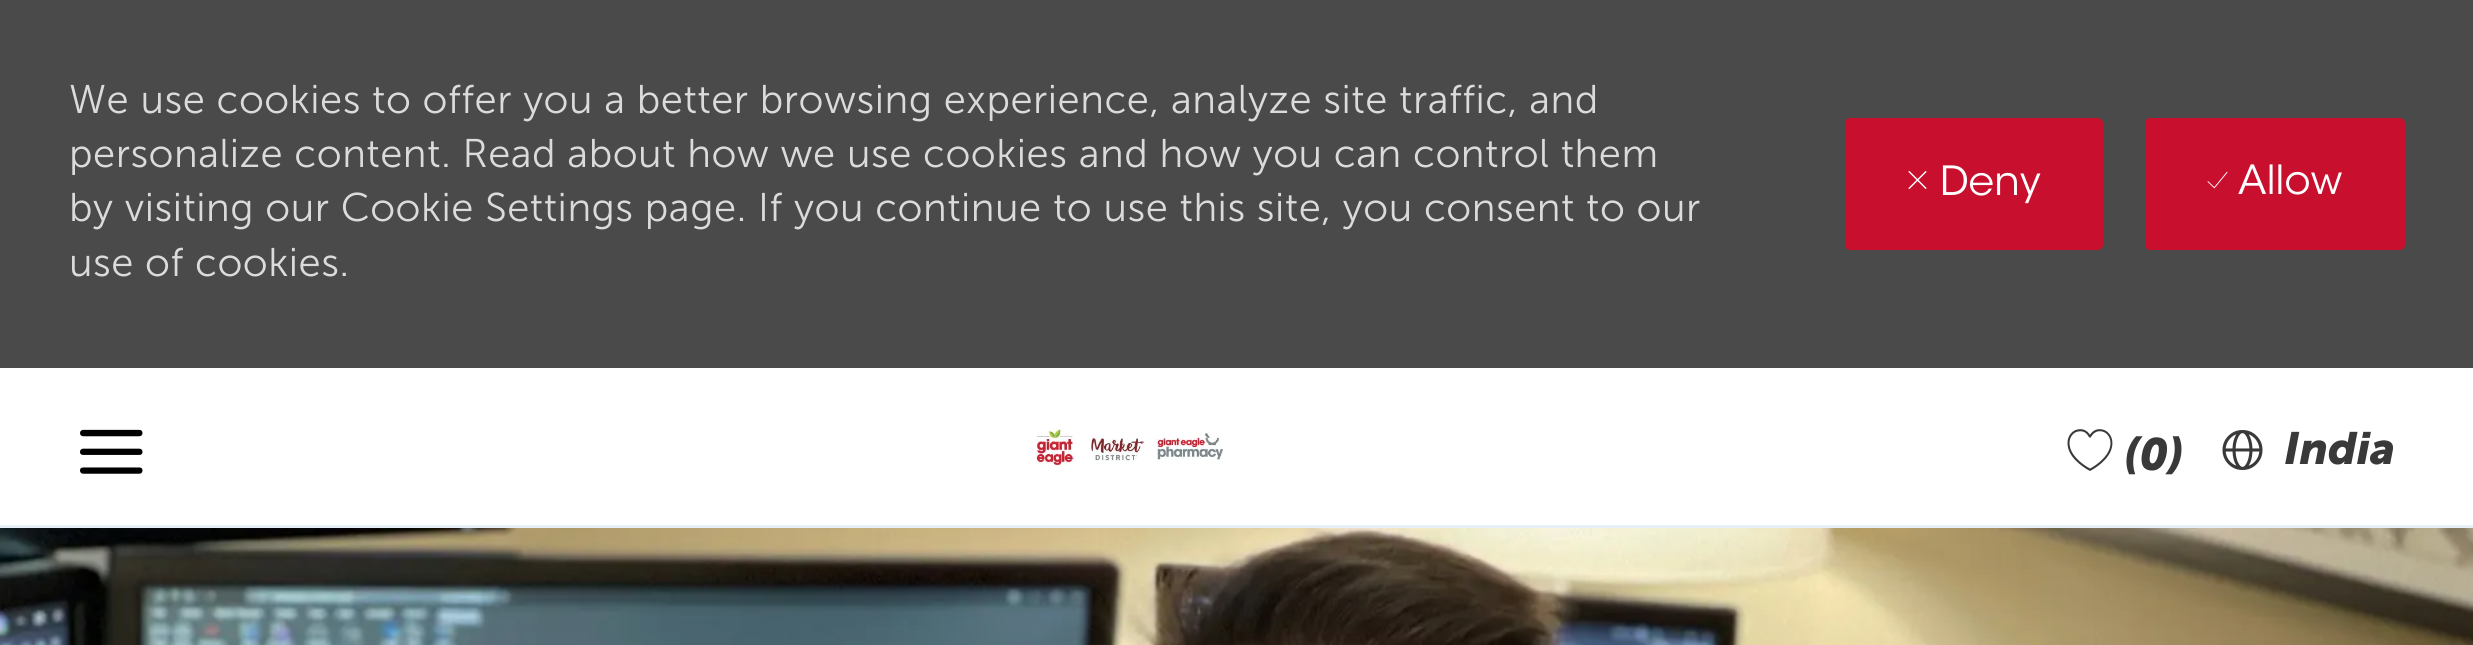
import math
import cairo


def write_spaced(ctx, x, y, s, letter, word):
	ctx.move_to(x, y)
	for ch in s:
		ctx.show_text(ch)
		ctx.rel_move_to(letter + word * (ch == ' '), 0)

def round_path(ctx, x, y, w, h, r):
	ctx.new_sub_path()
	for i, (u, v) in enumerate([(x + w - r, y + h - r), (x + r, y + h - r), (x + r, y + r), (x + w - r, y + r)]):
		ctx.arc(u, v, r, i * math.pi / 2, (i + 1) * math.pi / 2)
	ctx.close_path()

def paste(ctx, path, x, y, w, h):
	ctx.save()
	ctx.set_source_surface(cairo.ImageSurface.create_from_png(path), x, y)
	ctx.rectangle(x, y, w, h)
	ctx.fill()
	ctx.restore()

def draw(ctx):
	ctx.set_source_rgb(1, 1, 1)
	ctx.paint()
	ctx.set_source_rgb(0.29, 0.29, 0.29)
	ctx.rectangle(0, 0, 2473, 368)
	ctx.fill()
	ctx.select_font_face('Museo Sans Light')
	ctx.set_font_size(40)
	ctx.set_source_rgb(0.859, 0.859, 0.859)
	for x, y, s in [
		(69, 113, 'We use cookies to offer you a better browsing experience, analyze site traffic, and'),
		(69, 167, 'personalize content. Read about how we use cookies and how you can control them'),
		(69, 221, 'by visiting our Cookie Settings page. If you continue to use this site, you consent to our'),
		(69, 276, 'use of cookies.'),
	]:
		write_spaced(ctx, x, y, s, 0.5, 0)
	ctx.set_source_rgb(0.784, 0.063, 0.18)
	round_path(ctx, 1846.5, 119.5, 255, 129, 3.5)
	ctx.fill_preserve()
	ctx.set_line_width(3)
	ctx.stroke()
	paste(ctx, 'media/1.png', 1908, 171, 19, 18)
	ctx.select_font_face('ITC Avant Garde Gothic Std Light')
	ctx.set_source_rgb(1, 1, 1)
	write_spaced(ctx, 1940, 195, 'Deny', 0.25, 0)
	ctx.set_source_rgb(0.784, 0.063, 0.18)
	round_path(ctx, 2146.5, 119.5, 257, 129, 3.5)
	ctx.fill_preserve()
	ctx.stroke()
	paste(ctx, 'media/2.png', 2207, 171, 21, 18)
	ctx.set_source_rgb(1, 1, 1)
	write_spaced(ctx, 2238, 194, 'Allow', 0.25, 0)
	ctx.set_source_rgb(0.91, 0.937, 0.961)
	ctx.rectangle(0, 525, 2473, 3)
	ctx.fill()
	paste(ctx, 'media/3.png', 80, 429, 63, 45)
	paste(ctx, 'media/4.png', 1035, 429, 188, 39)
	paste(ctx, 'media/5.png', 2067, 429, 46, 42)
	ctx.select_font_face('Museo Sans', cairo.FONT_SLANT_ITALIC, cairo.FONT_WEIGHT_BOLD)
	ctx.set_font_size(45)
	ctx.set_source_rgb(0.224, 0.224, 0.224)
	ctx.move_to(2124, 470)
	ctx.show_text('(0)')
	paste(ctx, 'media/6.png', 2222, 430, 41, 40)
	ctx.move_to(2284, 464)
	ctx.show_text('India')
	paste(ctx, 'media/7.png', 0, 528, 2473, 117)


surface = cairo.ImageSurface(cairo.FORMAT_RGB24, 2473, 645)
ctx = cairo.Context(surface)
options = cairo.FontOptions()
options.set_hint_metrics(cairo.HINT_METRICS_OFF)
options.set_hint_style(cairo.HINT_STYLE_NONE)
ctx.set_font_options(options)
ctx.set_miter_limit(4)
draw(ctx)
surface.write_to_png('image.png')
